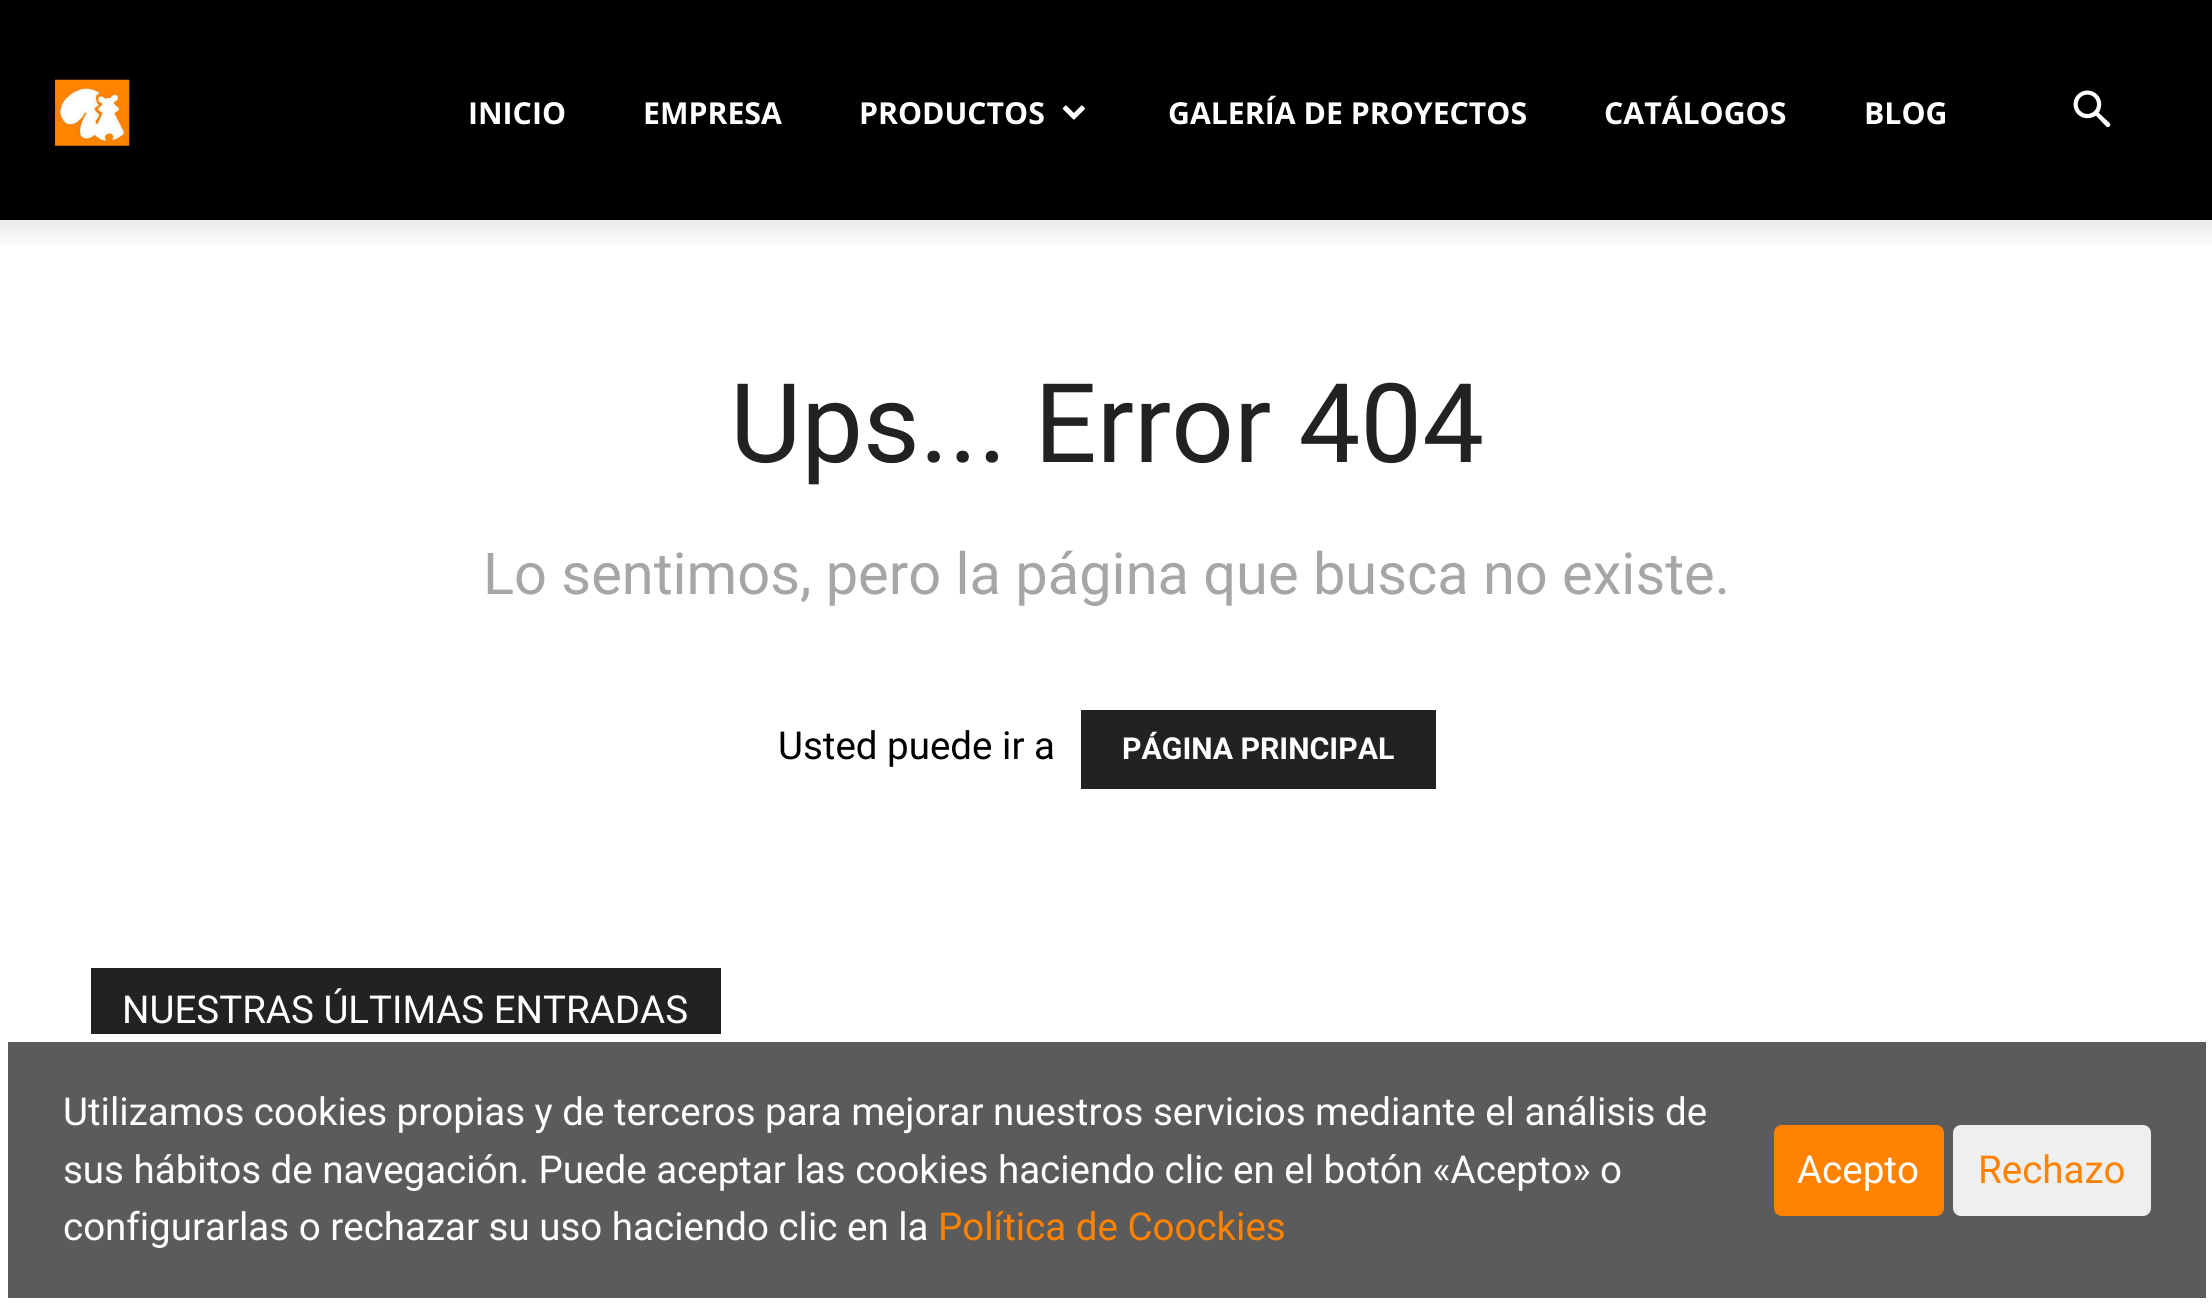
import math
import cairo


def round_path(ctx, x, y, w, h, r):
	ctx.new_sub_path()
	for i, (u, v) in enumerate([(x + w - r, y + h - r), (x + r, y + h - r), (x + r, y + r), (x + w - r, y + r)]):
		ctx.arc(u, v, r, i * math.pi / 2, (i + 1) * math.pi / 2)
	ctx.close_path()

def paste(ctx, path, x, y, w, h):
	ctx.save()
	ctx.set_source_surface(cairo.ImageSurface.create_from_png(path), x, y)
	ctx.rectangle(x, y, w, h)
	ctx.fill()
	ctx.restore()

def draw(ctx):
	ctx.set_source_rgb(1, 1, 1)
	ctx.paint()
	ctx.set_source_rgb(0, 0, 0)
	ctx.rectangle(0, 0, 2212, 220)
	ctx.fill()
	paste(ctx, 'media/1.png', 55, 79, 75, 67)
	ctx.select_font_face('Open Sans', cairo.FONT_SLANT_NORMAL, cairo.FONT_WEIGHT_BOLD)
	ctx.set_font_size(30.25)
	ctx.set_source_rgb(1, 1, 1)
	for x, y, s in [
		(468, 124, 'INICIO'),
		(643, 124, 'EMPRESA'),
		(859, 124, 'PRODUCTOS'),
	]:
		ctx.move_to(x, y)
		ctx.show_text(s)
	paste(ctx, 'media/2.png', 1062, 105, 23, 15)
	for x, y, s in [
		(1168, 124, 'GALERÍA DE PROYECTOS'),
		(1604, 124, 'CATÁLOGOS'),
		(1864, 124, 'BLOG'),
	]:
		ctx.move_to(x, y)
		ctx.show_text(s)
	paste(ctx, 'media/3.png', 2073, 90, 38, 38)
	paste(ctx, 'media/4.png', 0, 220, 2212, 24)
	ctx.select_font_face('Roboto')
	ctx.set_font_size(110)
	ctx.set_source_rgb(0.133, 0.133, 0.133)
	ctx.move_to(730, 462)
	ctx.show_text('Ups... Error 404')
	ctx.set_font_size(57.75)
	ctx.set_source_rgb(0.651, 0.651, 0.651)
	ctx.move_to(483, 594)
	ctx.show_text('Lo sentimos, pero la página que busca no existe.')
	ctx.set_font_size(38.5)
	ctx.set_source_rgb(0, 0, 0)
	ctx.move_to(778, 759)
	ctx.show_text('Usted puede ir a')
	ctx.set_source_rgb(0.133, 0.133, 0.133)
	ctx.rectangle(1081, 710, 355, 79)
	ctx.fill()
	ctx.select_font_face('Roboto', cairo.FONT_SLANT_NORMAL, cairo.FONT_WEIGHT_BOLD)
	ctx.set_font_size(30.25)
	ctx.set_source_rgb(1, 1, 1)
	ctx.move_to(1122, 759)
	ctx.show_text('PÁGINA PRINCIPAL')
	ctx.set_source_rgb(0.133, 0.133, 0.133)
	ctx.rectangle(91, 968, 630, 66)
	ctx.fill()
	ctx.select_font_face('Roboto')
	ctx.set_font_size(38.5)
	ctx.set_source_rgb(1, 1, 1)
	ctx.move_to(122, 1023)
	ctx.show_text('NUESTRAS ÚLTIMAS ENTRADAS')
	ctx.set_source_rgb(0.357, 0.357, 0.357)
	round_path(ctx, 4, 1038, 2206, 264, 4)
	ctx.fill_preserve()
	ctx.set_source_rgb(1, 1, 1)
	ctx.set_line_width(8)
	ctx.stroke()
	for x, y, s in [
		(63, 1125, 'Utilizamos cookies propias y de terceros para mejorar nuestros servicios mediante el análisis de'),
		(63, 1183, 'sus hábitos de navegación. Puede aceptar las cookies haciendo clic en el botón «Acepto» o'),
		(63, 1240, 'configurarlas o rechazar su uso haciendo clic en la'),
	]:
		ctx.move_to(x, y)
		ctx.show_text(s)
	ctx.set_source_rgb(1, 0.51, 0.004)
	ctx.move_to(938, 1240)
	ctx.show_text('Política de Coockies')
	round_path(ctx, 1774, 1125, 170, 91, 8)
	ctx.fill()
	ctx.set_source_rgb(1, 1, 1)
	ctx.move_to(1797, 1183)
	ctx.show_text('Acepto')
	ctx.set_source_rgb(0.937, 0.937, 0.937)
	round_path(ctx, 1953, 1125, 198, 91, 8)
	ctx.fill()
	ctx.set_source_rgb(1, 0.51, 0.004)
	ctx.move_to(1978, 1183)
	ctx.show_text('Rechazo')


surface = cairo.ImageSurface(cairo.FORMAT_RGB24, 2212, 1305)
ctx = cairo.Context(surface)
options = cairo.FontOptions()
options.set_hint_metrics(cairo.HINT_METRICS_OFF)
options.set_hint_style(cairo.HINT_STYLE_NONE)
ctx.set_font_options(options)
ctx.set_miter_limit(4)
draw(ctx)
surface.write_to_png('image.png')
